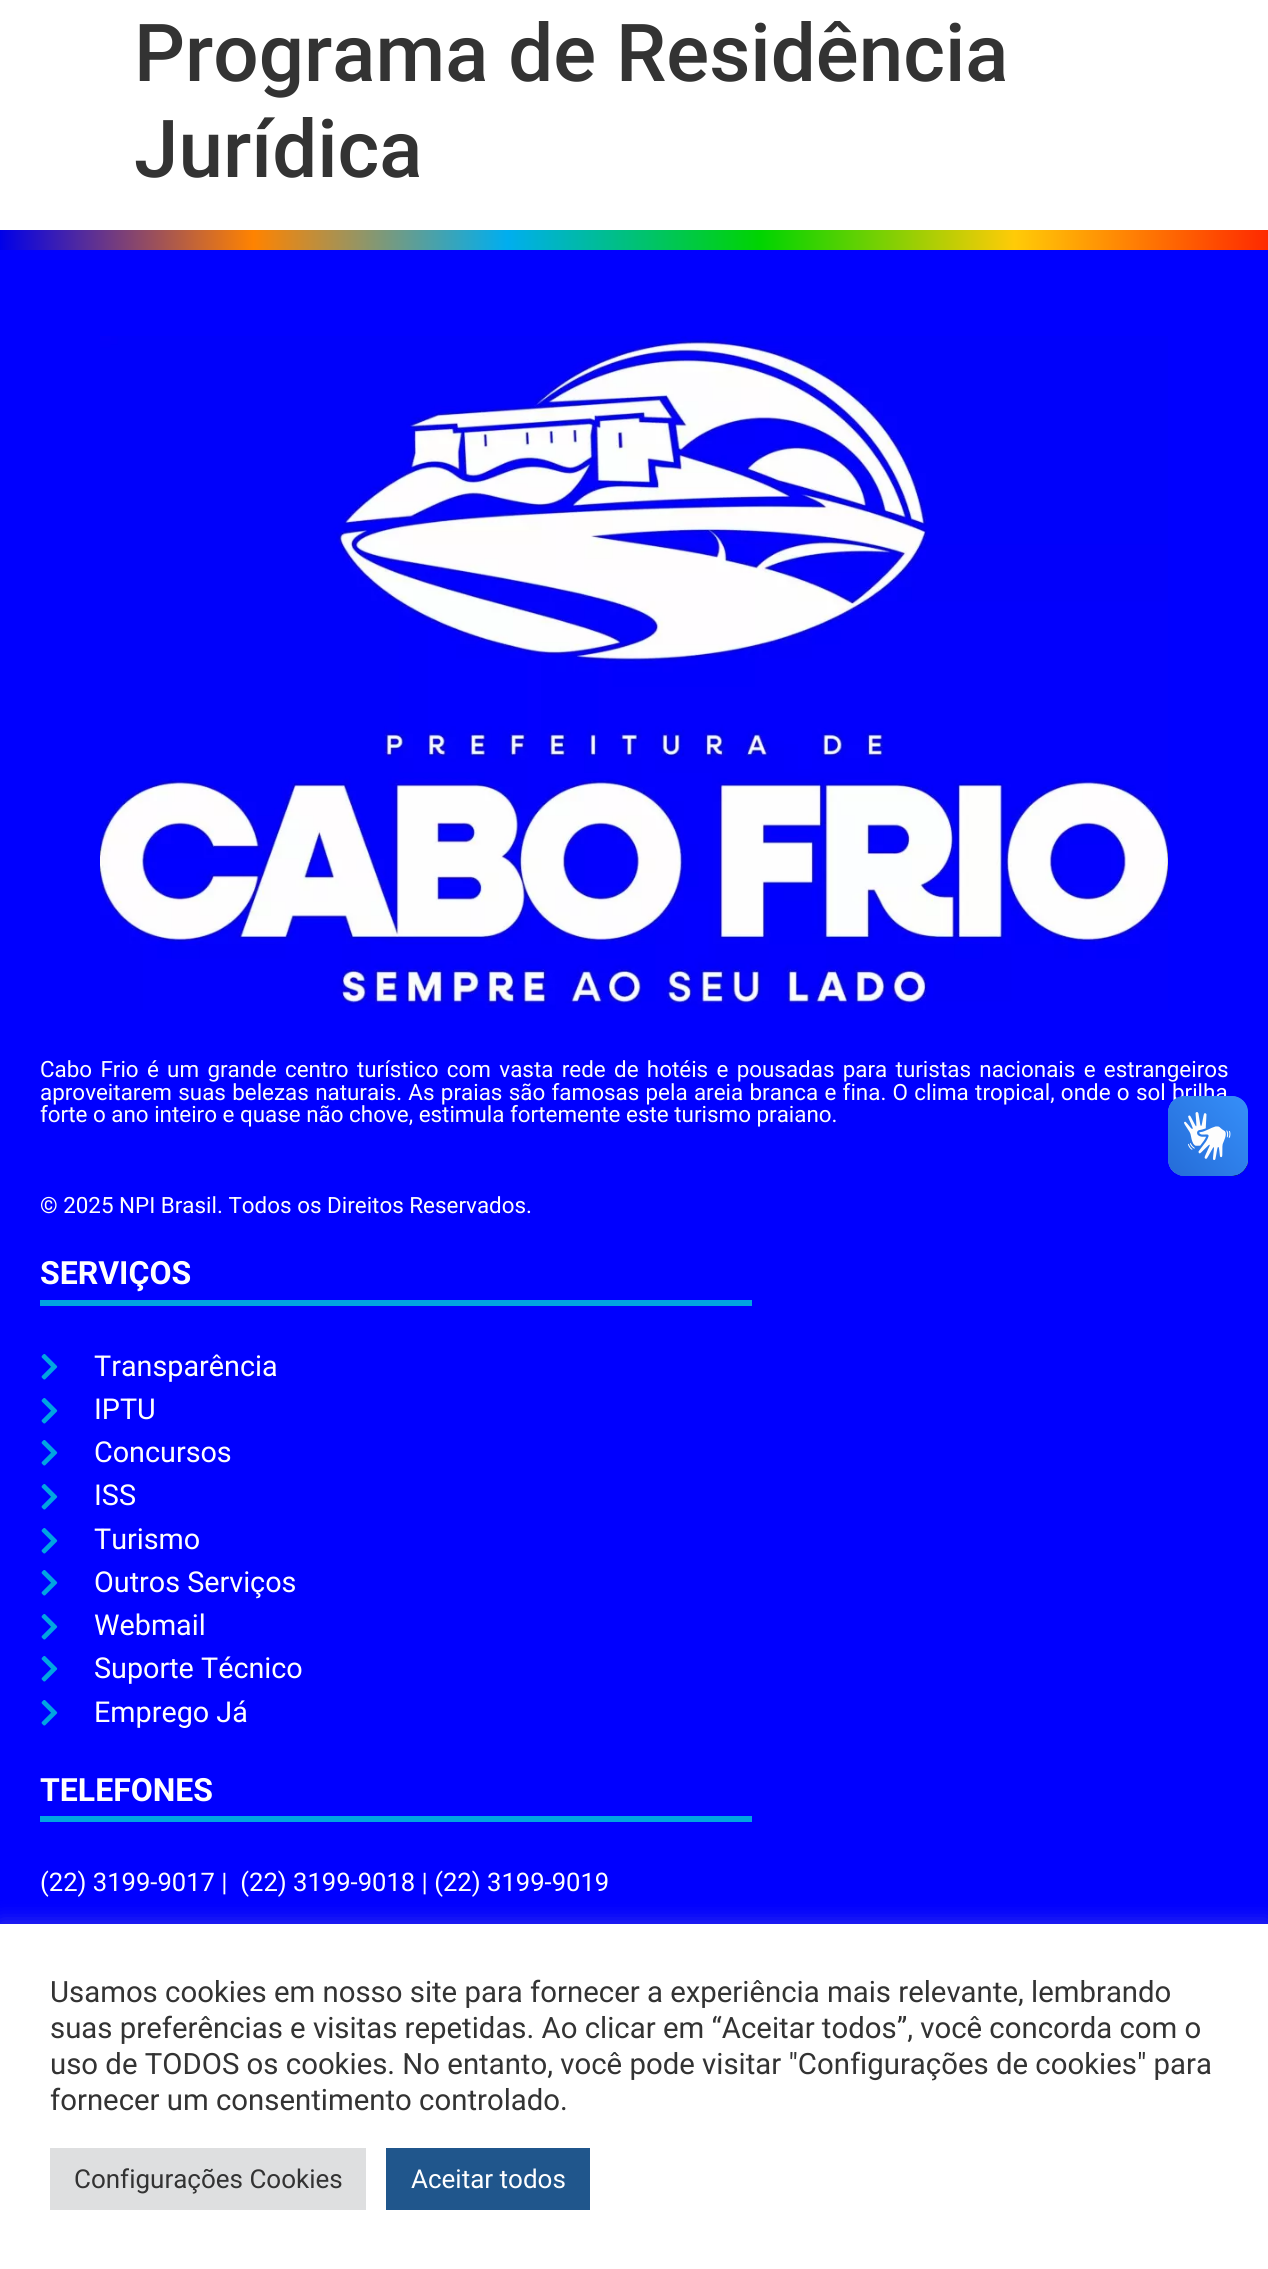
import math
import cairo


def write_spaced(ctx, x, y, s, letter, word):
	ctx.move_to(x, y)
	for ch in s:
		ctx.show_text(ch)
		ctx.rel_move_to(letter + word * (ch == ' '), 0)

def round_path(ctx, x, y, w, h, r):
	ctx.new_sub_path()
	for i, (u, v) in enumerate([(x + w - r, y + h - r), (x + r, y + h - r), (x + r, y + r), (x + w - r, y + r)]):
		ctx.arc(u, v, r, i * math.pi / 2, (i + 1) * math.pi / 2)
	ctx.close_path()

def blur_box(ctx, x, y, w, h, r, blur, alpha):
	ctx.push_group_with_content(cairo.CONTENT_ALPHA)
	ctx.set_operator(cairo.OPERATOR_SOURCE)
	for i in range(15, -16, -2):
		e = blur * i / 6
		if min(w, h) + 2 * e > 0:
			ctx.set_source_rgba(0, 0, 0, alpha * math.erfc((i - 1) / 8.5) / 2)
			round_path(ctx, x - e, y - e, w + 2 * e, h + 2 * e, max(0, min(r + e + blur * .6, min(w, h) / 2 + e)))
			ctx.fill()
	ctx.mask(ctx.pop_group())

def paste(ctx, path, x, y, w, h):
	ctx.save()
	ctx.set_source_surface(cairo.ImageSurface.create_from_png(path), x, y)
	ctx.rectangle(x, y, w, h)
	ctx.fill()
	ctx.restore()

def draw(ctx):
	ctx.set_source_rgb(1, 1, 1)
	ctx.paint()
	ctx.select_font_face('Roboto Medium')
	ctx.set_font_size(80)
	ctx.set_source_rgb(0.2, 0.2, 0.2)
	ctx.move_to(134, 81)
	ctx.show_text('Programa de Residência')
	ctx.move_to(134, 177)
	ctx.show_text('Jurídica')
	gradient = cairo.LinearGradient(0, 240, 1268, 240)
	gradient.add_color_stop_rgba(0, 0, 0, 0.914, 1)
	gradient.add_color_stop_rgba(0.2, 1, 0.514, 0, 1)
	gradient.add_color_stop_rgba(0.4, 0, 0.682, 0.937, 1)
	gradient.add_color_stop_rgba(0.6, 0, 0.831, 0, 1)
	gradient.add_color_stop_rgba(0.8, 1, 0.796, 0.027, 1)
	gradient.add_color_stop_rgba(1, 0.996, 0.161, 0, 1)
	ctx.set_source(gradient)
	ctx.rectangle(0, 230, 1268, 20)
	ctx.fill()
	ctx.set_source_rgb(0, 0, 1)
	ctx.rectangle(0, 250, 1268, 1674)
	ctx.fill()
	paste(ctx, 'media/1.png', 100, 336, 1068, 674)
	ctx.select_font_face('Roboto')
	ctx.set_font_size(22.4)
	ctx.set_source_rgb(1, 1, 1)
	write_spaced(ctx, 40, 1077, 'Cabo Frio é um grande centro turístico com vasta rede de hotéis e pousadas para turistas nacionais e estrangeiros', 0, 2.75)
	write_spaced(ctx, 40, 1100, 'aproveitarem suas belezas naturais. As praias são famosas pela areia branca e fina. O clima tropical, onde o sol brilha', 0, 0.75)
	ctx.move_to(40, 1122)
	ctx.show_text('forte o ano inteiro e quase não chove, estimula fortemente este turismo praiano.')
	ctx.move_to(40, 1213)
	ctx.show_text('© 2025 NPI Brasil. Todos os Direitos Reservados.')
	ctx.select_font_face('Roboto', cairo.FONT_SLANT_NORMAL, cairo.FONT_WEIGHT_BOLD)
	ctx.set_font_size(32)
	ctx.move_to(40, 1284)
	ctx.show_text('SERVIÇOS')
	ctx.set_source_rgb(0.004, 0.647, 0.882)
	ctx.rectangle(40, 1300, 712, 6)
	ctx.fill()
	paste(ctx, 'media/2.png', 41, 1354, 17, 26)
	ctx.select_font_face('Roboto')
	ctx.set_font_size(28.75)
	ctx.set_source_rgb(1, 1, 1)
	ctx.move_to(94, 1376)
	ctx.show_text('Transparência')
	paste(ctx, 'media/2.png', 41, 1398, 17, 26)
	ctx.move_to(94, 1419)
	ctx.show_text('IPTU')
	paste(ctx, 'media/2.png', 41, 1440, 17, 26)
	ctx.move_to(94, 1462)
	ctx.show_text('Concursos')
	paste(ctx, 'media/2.png', 41, 1484, 17, 26)
	ctx.move_to(94, 1505)
	ctx.show_text('ISS')
	paste(ctx, 'media/2.png', 41, 1528, 17, 26)
	ctx.move_to(94, 1549)
	ctx.show_text('Turismo')
	paste(ctx, 'media/2.png', 41, 1570, 17, 26)
	ctx.move_to(94, 1592)
	ctx.show_text('Outros Serviços')
	paste(ctx, 'media/2.png', 41, 1614, 17, 26)
	ctx.move_to(94, 1635)
	ctx.show_text('Webmail')
	paste(ctx, 'media/2.png', 41, 1656, 17, 26)
	ctx.move_to(94, 1678)
	ctx.show_text('Suporte Técnico')
	paste(ctx, 'media/2.png', 41, 1700, 17, 26)
	ctx.move_to(94, 1722)
	ctx.show_text('Emprego Já')
	ctx.select_font_face('Roboto', cairo.FONT_SLANT_NORMAL, cairo.FONT_WEIGHT_BOLD)
	ctx.set_font_size(32)
	ctx.move_to(40, 1801)
	ctx.show_text('TELEFONES')
	ctx.set_source_rgb(0.004, 0.647, 0.882)
	ctx.rectangle(40, 1816, 712, 6)
	ctx.fill()
	ctx.select_font_face('Roboto')
	ctx.set_font_size(25.6)
	ctx.set_source_rgb(1, 1, 1)
	ctx.move_to(40, 1891)
	ctx.show_text('(22) 3199-9017 |  (22) 3199-9018 | (22) 3199-9019')
	paste(ctx, 'media/3.png', 1168, 1096, 80, 80)
	paste(ctx, 'media/4.png', 1168, 1096, 80, 80)
	ctx.set_source_rgb(0.675, 0.671, 0.671)
	blur_box(ctx, 0, 1922, 1268, 346, 0, 10, 0.3)
	ctx.set_source_rgb(1, 1, 1)
	ctx.rectangle(0, 1924, 1268, 345)
	ctx.fill()
	ctx.set_font_size(29.35)
	ctx.set_source_rgb(0.2, 0.2, 0.2)
	for x, y, s in [
		(50, 2002, 'Usamos cookies em nosso site para fornecer a experiência mais relevante, lembrando'),
		(50, 2038, 'suas preferências e visitas repetidas. Ao clicar em “Aceitar todos”, você concorda com o'),
		(50, 2074, 'uso de TODOS os cookies. No entanto, você pode visitar "Configurações de cookies" para'),
		(50, 2110, 'fornecer um consentimento controlado.'),
	]:
		ctx.move_to(x, y)
		ctx.show_text(s)
	ctx.set_source_rgb(0.871, 0.875, 0.878)
	ctx.rectangle(50, 2148, 316, 62)
	ctx.fill()
	ctx.set_font_size(26)
	ctx.set_source_rgb(0.2, 0.2, 0.2)
	ctx.move_to(74, 2188)
	ctx.show_text('Configurações Cookies')
	ctx.set_source_rgb(0.125, 0.337, 0.549)
	ctx.rectangle(386, 2148, 204, 62)
	ctx.fill()
	ctx.set_source_rgb(1, 1, 1)
	ctx.move_to(411, 2188)
	ctx.show_text('Aceitar todos')


surface = cairo.ImageSurface(cairo.FORMAT_RGB24, 1268, 2269)
ctx = cairo.Context(surface)
options = cairo.FontOptions()
options.set_hint_metrics(cairo.HINT_METRICS_OFF)
options.set_hint_style(cairo.HINT_STYLE_NONE)
ctx.set_font_options(options)
ctx.set_miter_limit(4)
draw(ctx)
surface.write_to_png('image.png')
